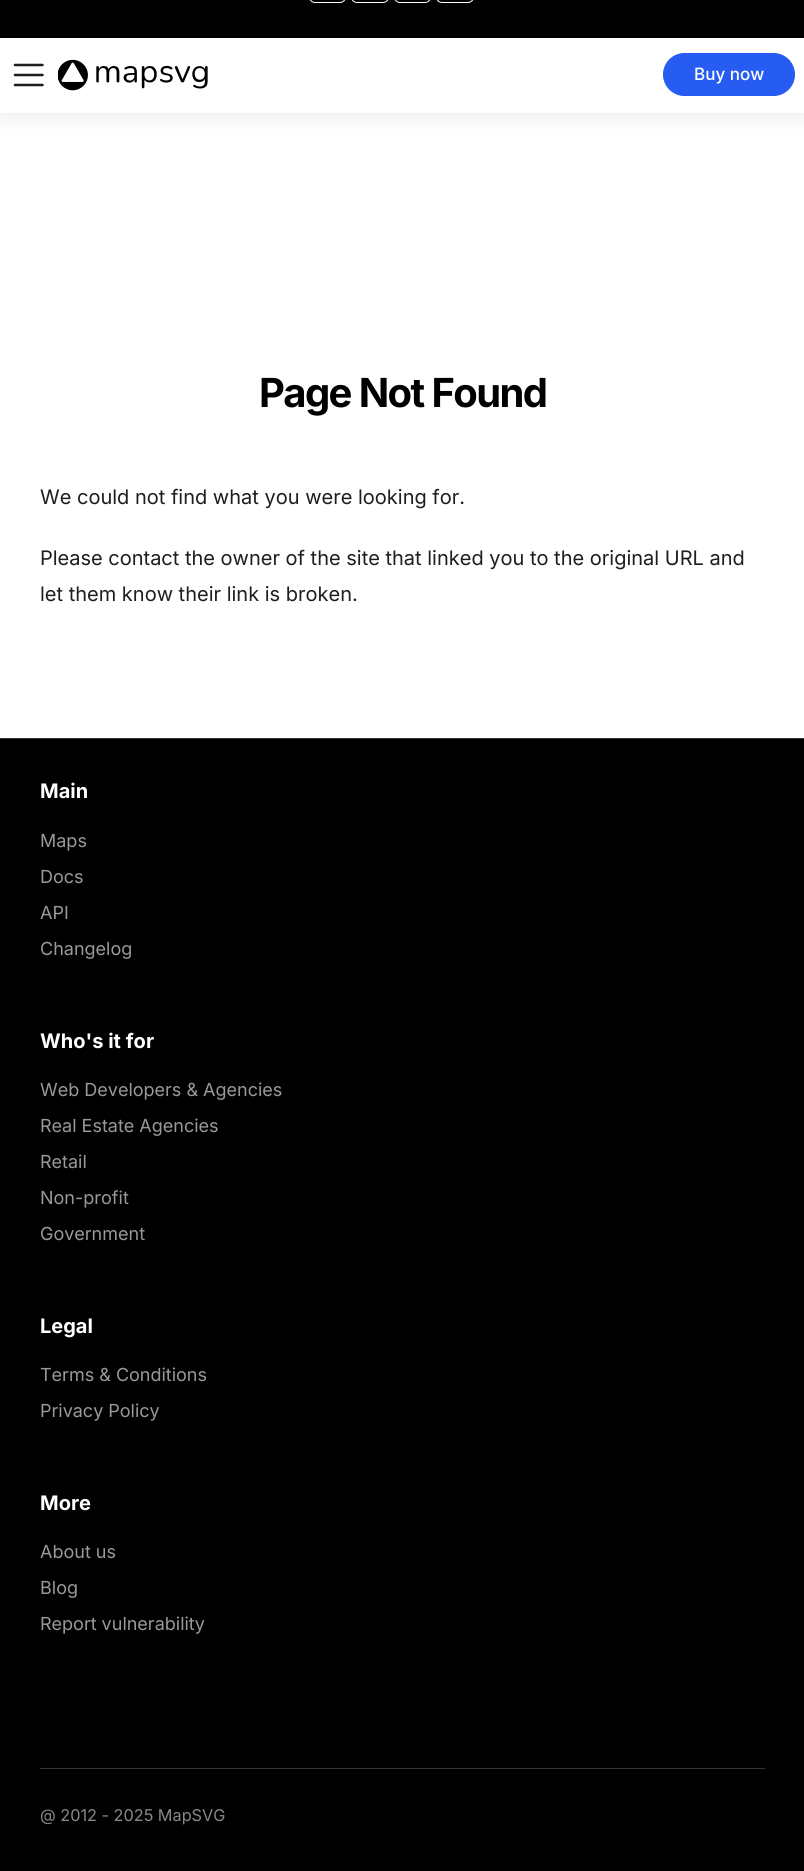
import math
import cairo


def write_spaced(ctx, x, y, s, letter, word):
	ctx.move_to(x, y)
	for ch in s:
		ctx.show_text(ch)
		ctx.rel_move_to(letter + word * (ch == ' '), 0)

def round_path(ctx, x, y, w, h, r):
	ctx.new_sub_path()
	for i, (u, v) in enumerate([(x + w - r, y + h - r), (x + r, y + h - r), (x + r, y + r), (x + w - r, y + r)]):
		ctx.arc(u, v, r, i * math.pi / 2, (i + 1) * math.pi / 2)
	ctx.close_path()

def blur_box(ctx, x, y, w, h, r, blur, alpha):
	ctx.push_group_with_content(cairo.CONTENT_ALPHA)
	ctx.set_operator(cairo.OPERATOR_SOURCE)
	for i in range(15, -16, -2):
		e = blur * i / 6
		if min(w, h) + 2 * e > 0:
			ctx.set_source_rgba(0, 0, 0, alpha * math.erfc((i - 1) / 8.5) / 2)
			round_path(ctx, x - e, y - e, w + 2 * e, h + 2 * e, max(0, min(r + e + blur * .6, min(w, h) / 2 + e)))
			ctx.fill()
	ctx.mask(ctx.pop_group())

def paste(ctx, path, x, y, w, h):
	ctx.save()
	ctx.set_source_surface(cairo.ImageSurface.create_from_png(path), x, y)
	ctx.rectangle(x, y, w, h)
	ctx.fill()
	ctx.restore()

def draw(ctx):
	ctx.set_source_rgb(1, 1, 1)
	ctx.paint()
	ctx.set_source_rgb(0, 0, 0)
	ctx.rectangle(0, 0, 804, 38)
	ctx.fill()
	round_path(ctx, 309.5, -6.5, 36, 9, 5.5)
	ctx.set_source_rgb(1, 1, 1)
	ctx.set_line_width(1)
	ctx.stroke()
	round_path(ctx, 351.5, -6.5, 37, 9, 5.5)
	ctx.stroke()
	round_path(ctx, 394.5, -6.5, 36, 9, 5.5)
	ctx.stroke()
	round_path(ctx, 436.5, -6.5, 37, 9, 5.5)
	ctx.stroke()
	ctx.set_source_rgb(0, 0, 0)
	blur_box(ctx, 0, 38, 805, 75, 0, 12.5, 0.1)
	ctx.set_source_rgb(1, 1, 1)
	ctx.rectangle(0, 38, 804, 75)
	ctx.fill()
	ctx.new_path()
	ctx.move_to(15, 65)
	ctx.line_to(42.5, 65)
	ctx.move_to(15, 75)
	ctx.line_to(42.5, 75)
	ctx.move_to(15, 85)
	ctx.line_to(42.5, 85)
	ctx.set_source_rgb(0.11, 0.118, 0.129)
	ctx.set_line_width(2.5)
	ctx.set_line_cap(cairo.LINE_CAP_ROUND)
	ctx.stroke()
	paste(ctx, 'media/1.png', 58, 59, 150, 32)
	ctx.set_source_rgb(0.149, 0.361, 0.949)
	round_path(ctx, 663.5, 53.5, 131, 42, 21)
	ctx.fill_preserve()
	ctx.set_line_width(1)
	ctx.set_line_cap(cairo.LINE_CAP_BUTT)
	ctx.stroke()
	ctx.select_font_face('Inter Medium')
	ctx.set_font_size(17)
	ctx.set_source_rgb(1, 1, 1)
	ctx.move_to(694, 80)
	ctx.show_text('Buy now')
	ctx.select_font_face('Inter', cairo.FONT_SLANT_NORMAL, cairo.FONT_WEIGHT_BOLD)
	ctx.set_font_size(40)
	ctx.set_source_rgb(0, 0, 0)
	write_spaced(ctx, 259, 407, 'Page Not Found', -1.6, 0)
	ctx.select_font_face('Inter')
	ctx.set_font_size(20)
	ctx.set_source_rgb(0.11, 0.118, 0.129)
	for x, y, s in [
		(40, 504, 'We could not find what you were looking for.'),
		(40, 565, 'Please contact the owner of the site that linked you to the original URL and'),
		(40, 601, 'let them know their link is broken.'),
	]:
		ctx.move_to(x, y)
		ctx.show_text(s)
	ctx.set_source_rgb(0, 0, 0)
	ctx.rectangle(0, 739, 804, 1132)
	ctx.fill()
	ctx.set_source_rgb(0.2, 0.2, 0.2)
	ctx.rectangle(0, 738, 804, 1)
	ctx.fill()
	ctx.select_font_face('Inter', cairo.FONT_SLANT_NORMAL, cairo.FONT_WEIGHT_BOLD)
	ctx.set_source_rgb(1, 1, 1)
	ctx.move_to(40, 798)
	ctx.show_text('Main')
	ctx.select_font_face('Inter')
	ctx.set_font_size(18)
	ctx.set_source_rgb(0.6, 0.6, 0.6)
	for x, y, s in [
		(40, 847, 'Maps'),
		(40, 883, 'Docs'),
		(40, 919, 'API'),
		(40, 955, 'Changelog'),
	]:
		ctx.move_to(x, y)
		ctx.show_text(s)
	ctx.select_font_face('Inter', cairo.FONT_SLANT_NORMAL, cairo.FONT_WEIGHT_BOLD)
	ctx.set_font_size(20)
	ctx.set_source_rgb(1, 1, 1)
	ctx.move_to(40, 1048)
	ctx.show_text('Who\'s it for')
	ctx.select_font_face('Inter')
	ctx.set_font_size(18)
	ctx.set_source_rgb(0.6, 0.6, 0.6)
	for x, y, s in [
		(40, 1096, 'Web Developers & Agencies'),
		(40, 1132, 'Real Estate Agencies'),
		(40, 1168, 'Retail'),
		(40, 1204, 'Non-profit'),
		(40, 1240, 'Government'),
	]:
		ctx.move_to(x, y)
		ctx.show_text(s)
	ctx.select_font_face('Inter', cairo.FONT_SLANT_NORMAL, cairo.FONT_WEIGHT_BOLD)
	ctx.set_font_size(20)
	ctx.set_source_rgb(1, 1, 1)
	ctx.move_to(40, 1333)
	ctx.show_text('Legal')
	ctx.select_font_face('Inter')
	ctx.set_font_size(18)
	ctx.set_source_rgb(0.6, 0.6, 0.6)
	ctx.move_to(40, 1381)
	ctx.show_text('Terms & Conditions')
	ctx.move_to(40, 1417)
	ctx.show_text('Privacy Policy')
	ctx.select_font_face('Inter', cairo.FONT_SLANT_NORMAL, cairo.FONT_WEIGHT_BOLD)
	ctx.set_font_size(20)
	ctx.set_source_rgb(1, 1, 1)
	ctx.move_to(40, 1510)
	ctx.show_text('More')
	ctx.select_font_face('Inter')
	ctx.set_font_size(18)
	ctx.set_source_rgb(0.6, 0.6, 0.6)
	for x, y, s in [
		(40, 1558, 'About us'),
		(40, 1594, 'Blog'),
		(40, 1630, 'Report vulnerability'),
	]:
		ctx.move_to(x, y)
		ctx.show_text(s)
	ctx.set_source_rgb(0.2, 0.2, 0.2)
	ctx.rectangle(40, 1768, 725, 1)
	ctx.fill()
	ctx.set_font_size(16.25)
	ctx.set_source_rgb(0.533, 0.533, 0.533)
	ctx.move_to(40, 1821)
	ctx.show_text('@ 2012 - 2025 MapSVG')


surface = cairo.ImageSurface(cairo.FORMAT_RGB24, 804, 1871)
ctx = cairo.Context(surface)
options = cairo.FontOptions()
options.set_hint_metrics(cairo.HINT_METRICS_OFF)
options.set_hint_style(cairo.HINT_STYLE_NONE)
ctx.set_font_options(options)
ctx.set_miter_limit(4)
draw(ctx)
surface.write_to_png('image.png')
